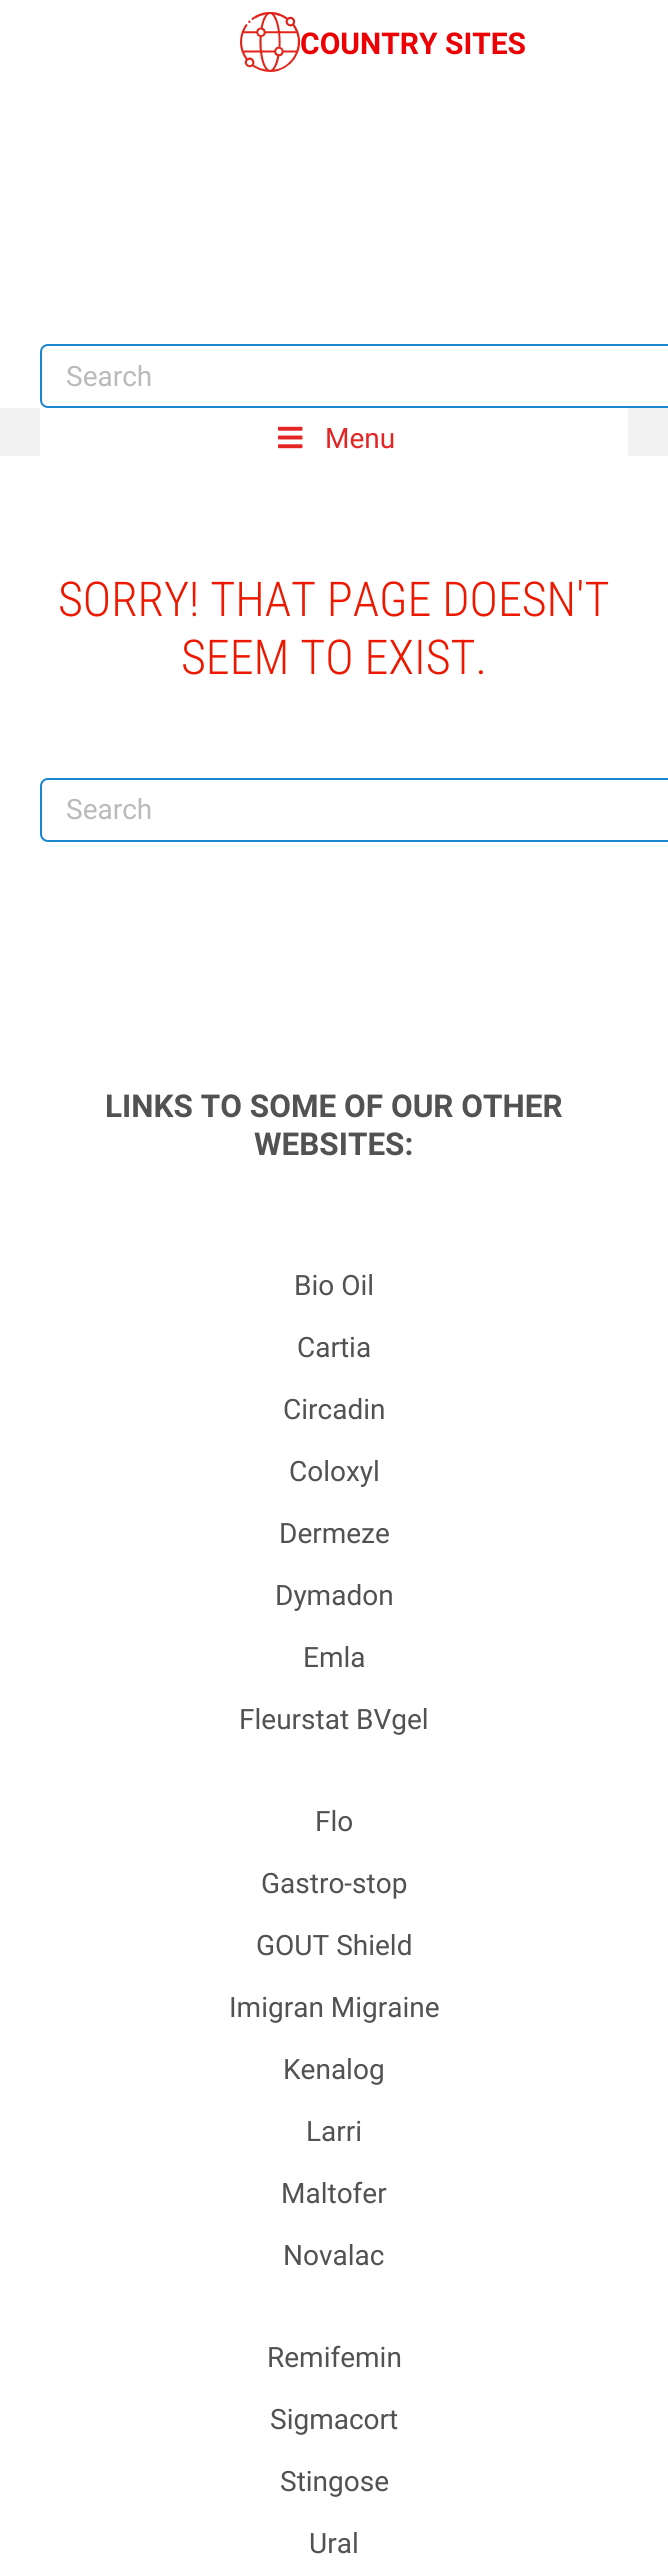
import math
import cairo


def round_path(ctx, x, y, w, h, r):
	ctx.new_sub_path()
	for i, (u, v) in enumerate([(x + w - r, y + h - r), (x + r, y + h - r), (x + r, y + r), (x + w - r, y + r)]):
		ctx.arc(u, v, r, i * math.pi / 2, (i + 1) * math.pi / 2)
	ctx.close_path()

def paste(ctx, path, x, y, w, h):
	ctx.save()
	ctx.set_source_surface(cairo.ImageSurface.create_from_png(path), x, y)
	ctx.rectangle(x, y, w, h)
	ctx.fill()
	ctx.restore()

def draw(ctx):
	ctx.set_source_rgb(0.949, 0.949, 0.949)
	ctx.paint()
	ctx.set_source_rgb(1, 1, 1)
	ctx.rectangle(0, 0, 668, 408)
	ctx.fill()
	paste(ctx, 'media/1.png', 240, 12, 60, 60)
	ctx.select_font_face('Roboto', cairo.FONT_SLANT_NORMAL, cairo.FONT_WEIGHT_BOLD)
	ctx.set_font_size(30)
	ctx.set_source_rgb(0.925, 0, 0.012)
	ctx.move_to(300, 54)
	ctx.show_text('COUNTRY SITES')
	round_path(ctx, 41, 345, 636, 62, 7)
	ctx.set_source_rgb(0.098, 0.525, 0.812)
	ctx.stroke()
	ctx.select_font_face('Roboto')
	ctx.set_font_size(28)
	ctx.set_source_rgb(0.729, 0.729, 0.729)
	ctx.move_to(66, 386)
	ctx.show_text('Search')
	ctx.set_source_rgb(1, 1, 1)
	ctx.rectangle(40, 408, 588, 48)
	ctx.fill()
	paste(ctx, 'media/2.png', 278, 426, 25, 23)
	ctx.set_source_rgb(0.89, 0.145, 0.149)
	ctx.move_to(325, 448)
	ctx.show_text('Menu')
	ctx.set_source_rgb(1, 1, 1)
	ctx.rectangle(0, 456, 668, 2107)
	ctx.fill()
	ctx.select_font_face('Roboto Condensed Light')
	ctx.set_font_size(48)
	ctx.set_source_rgb(0.922, 0.098, 0)
	ctx.move_to(58, 616)
	ctx.show_text('SORRY! THAT PAGE DOESN\'T')
	ctx.move_to(181, 674)
	ctx.show_text('SEEM TO EXIST.')
	round_path(ctx, 41, 779, 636, 62, 7)
	ctx.set_source_rgb(0.098, 0.525, 0.812)
	ctx.stroke()
	ctx.select_font_face('Roboto')
	ctx.set_font_size(28)
	ctx.set_source_rgb(0.729, 0.729, 0.729)
	ctx.move_to(66, 819)
	ctx.show_text('Search')
	ctx.select_font_face('Roboto', cairo.FONT_SLANT_NORMAL, cairo.FONT_WEIGHT_BOLD)
	ctx.set_font_size(31.5)
	ctx.set_source_rgb(0.322, 0.322, 0.322)
	ctx.move_to(105, 1117)
	ctx.show_text('LINKS TO SOME OF OUR OTHER')
	ctx.move_to(254, 1155)
	ctx.show_text('WEBSITES:')
	ctx.select_font_face('Roboto')
	ctx.set_font_size(28)
	for x, y, s in [
		(294, 1295, 'Bio Oil'),
		(297, 1357, 'Cartia'),
		(283, 1419, 'Circadin'),
		(289, 1481, 'Coloxyl'),
		(279, 1543, 'Dermeze'),
		(275, 1605, 'Dymadon'),
		(303, 1667, 'Emla'),
		(239, 1729, 'Fleurstat BVgel'),
		(315, 1831, 'Flo'),
		(261, 1893, 'Gastro-stop'),
		(256, 1955, 'GOUT Shield'),
		(229, 2017, 'Imigran Migraine'),
		(283, 2079, 'Kenalog'),
		(306, 2141, 'Larri'),
		(281, 2203, 'Maltofer'),
		(283, 2265, 'Novalac'),
		(267, 2367, 'Remifemin'),
		(270, 2429, 'Sigmacort'),
		(280, 2491, 'Stingose'),
		(309, 2553, 'Ural'),
	]:
		ctx.move_to(x, y)
		ctx.show_text(s)


surface = cairo.ImageSurface(cairo.FORMAT_RGB24, 668, 2563)
ctx = cairo.Context(surface)
options = cairo.FontOptions()
options.set_hint_metrics(cairo.HINT_METRICS_OFF)
options.set_hint_style(cairo.HINT_STYLE_NONE)
ctx.set_font_options(options)
ctx.set_miter_limit(4)
draw(ctx)
surface.write_to_png('image.png')
